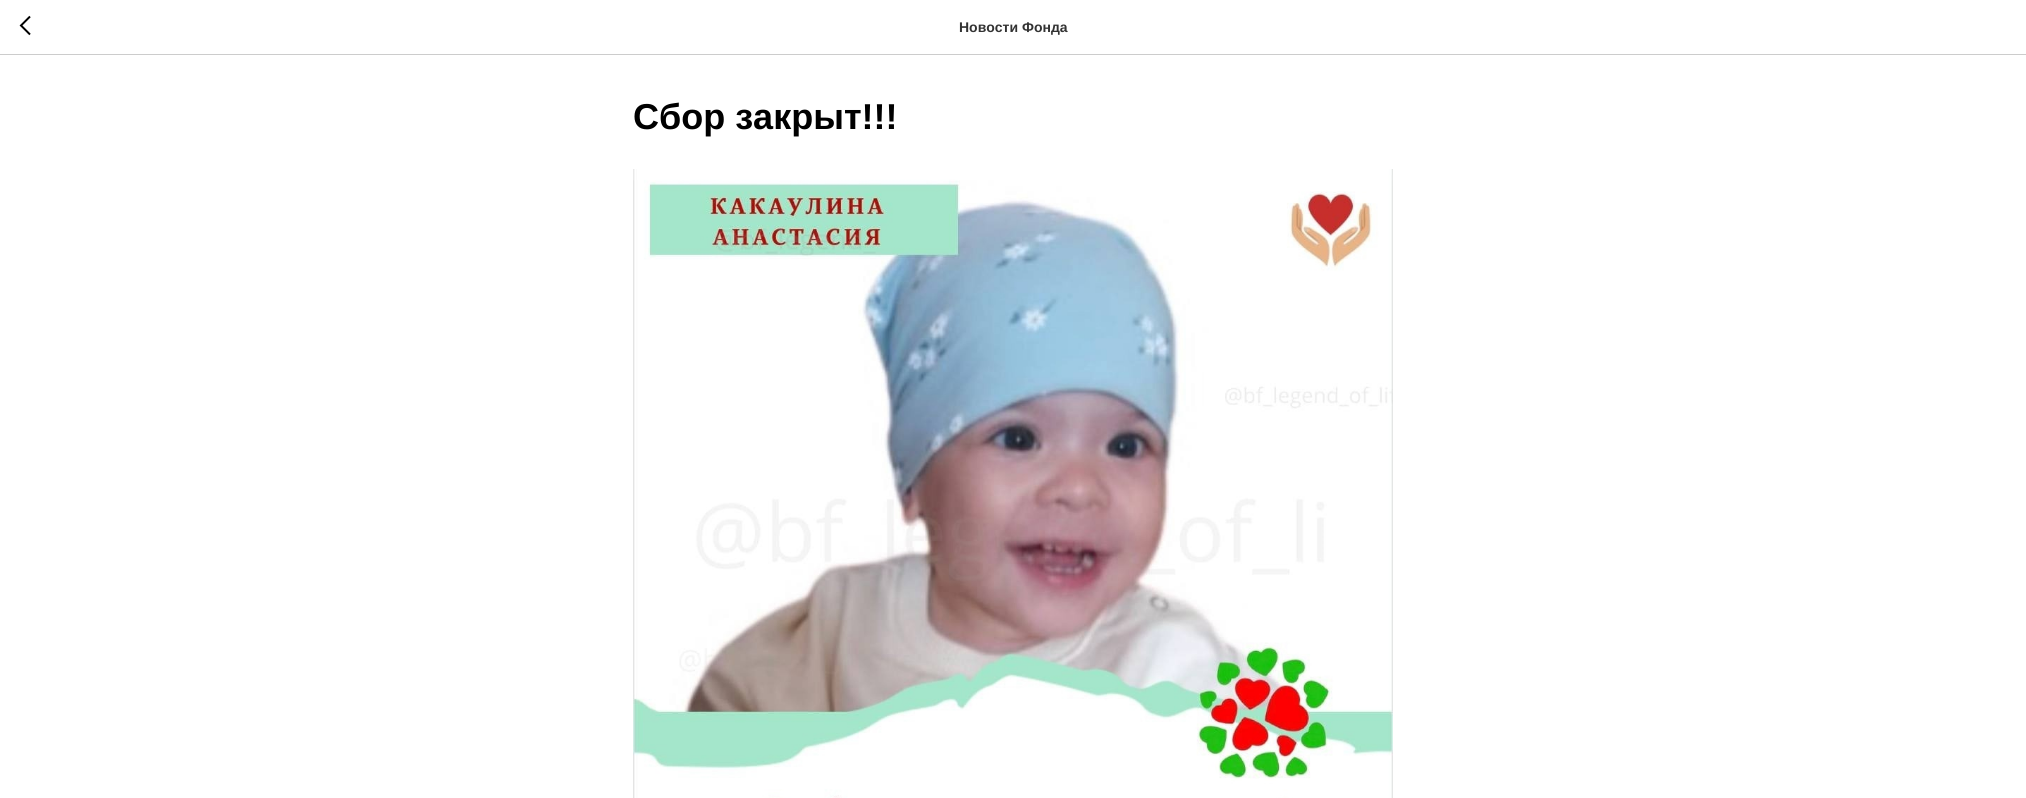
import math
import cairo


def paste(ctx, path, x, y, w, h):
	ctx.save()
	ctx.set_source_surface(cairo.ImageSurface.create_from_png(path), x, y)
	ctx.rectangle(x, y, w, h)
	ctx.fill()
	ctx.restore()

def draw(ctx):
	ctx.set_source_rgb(1, 1, 1)
	ctx.paint()
	ctx.set_source_rgb(0.8, 0.8, 0.8)
	ctx.rectangle(0, 54, 2026, 1)
	ctx.fill()
	ctx.new_path()
	ctx.move_to(30, 34.5)
	ctx.line_to(21, 25.5)
	ctx.line_to(30, 16.5)
	ctx.set_source_rgb(0, 0, 0)
	ctx.stroke()
	ctx.select_font_face('Liberation Sans', cairo.FONT_SLANT_NORMAL, cairo.FONT_WEIGHT_BOLD)
	ctx.set_font_size(14)
	ctx.set_source_rgb(0.2, 0.2, 0.2)
	ctx.move_to(959, 32)
	ctx.show_text('Новости Фонда')
	ctx.set_font_size(36)
	ctx.set_source_rgb(0, 0, 0)
	ctx.move_to(633, 129)
	ctx.show_text('Сбор закрыт!!!')
	paste(ctx, 'media/1.png', 633, 169, 760, 629)


surface = cairo.ImageSurface(cairo.FORMAT_RGB24, 2026, 798)
ctx = cairo.Context(surface)
options = cairo.FontOptions()
options.set_hint_metrics(cairo.HINT_METRICS_OFF)
options.set_hint_style(cairo.HINT_STYLE_NONE)
ctx.set_font_options(options)
ctx.set_miter_limit(4)
draw(ctx)
surface.write_to_png('image.png')
